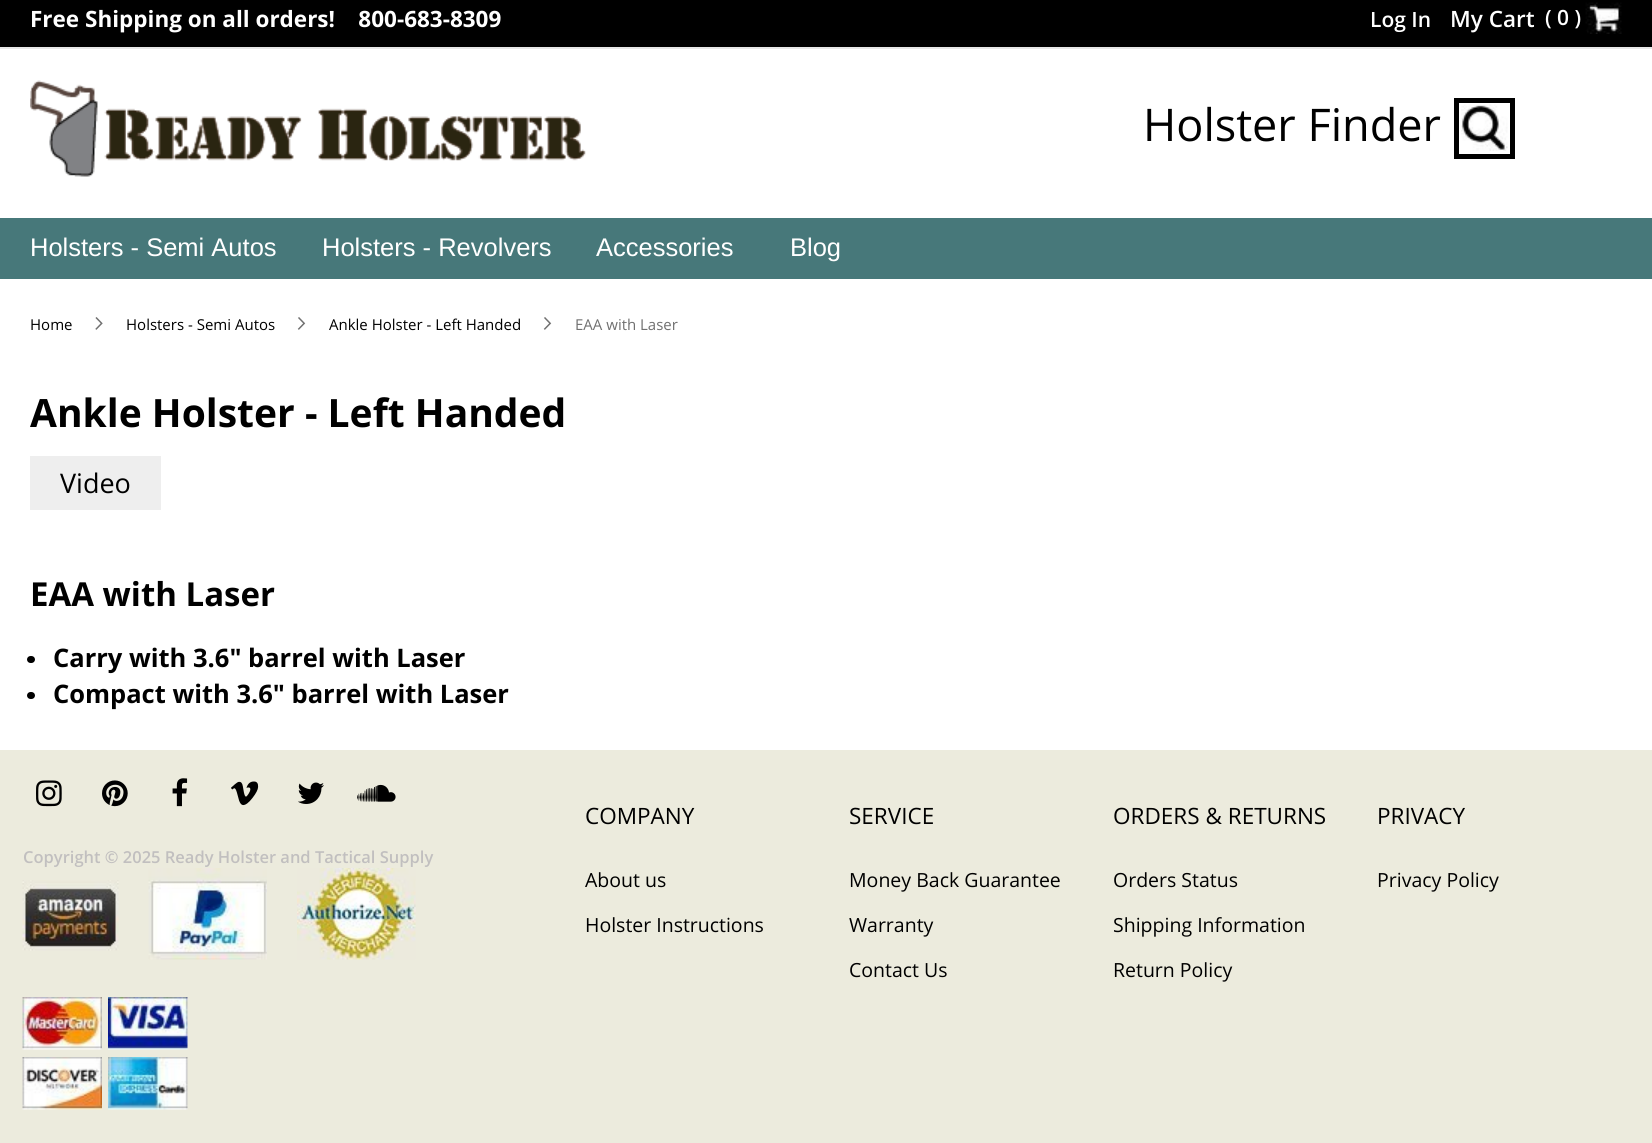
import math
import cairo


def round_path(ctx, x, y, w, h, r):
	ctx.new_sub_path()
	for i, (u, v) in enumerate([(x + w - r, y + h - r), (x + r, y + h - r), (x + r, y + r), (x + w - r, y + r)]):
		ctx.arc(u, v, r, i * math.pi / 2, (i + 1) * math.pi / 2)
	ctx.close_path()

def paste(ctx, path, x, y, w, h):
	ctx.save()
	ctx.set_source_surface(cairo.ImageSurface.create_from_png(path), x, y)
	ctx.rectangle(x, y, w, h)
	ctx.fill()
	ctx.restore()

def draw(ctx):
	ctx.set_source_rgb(1, 1, 1)
	ctx.paint()
	ctx.set_source_rgb(0, 0, 0)
	ctx.rectangle(0, 0, 1652, 47)
	ctx.fill()
	ctx.set_source_rgb(0.91, 0.91, 0.91)
	ctx.rectangle(0, 47, 1652, 2)
	ctx.fill()
	ctx.select_font_face('Open Sans', cairo.FONT_SLANT_NORMAL, cairo.FONT_WEIGHT_BOLD)
	ctx.set_font_size(22.5)
	ctx.set_source_rgb(1, 1, 1)
	ctx.move_to(30, 27)
	ctx.show_text('Free Shipping on all orders!    800-683-8309')
	ctx.select_font_face('Open Sans SemiBold')
	ctx.set_font_size(21)
	ctx.move_to(1370, 27)
	ctx.show_text('Log In')
	paste(ctx, 'media/1.png', 1585, 2, 37, 32)
	ctx.set_font_size(22.5)
	ctx.move_to(1450, 27)
	ctx.show_text('My Cart')
	ctx.set_font_size(21)
	ctx.move_to(1545, 25)
	ctx.show_text('( 0 )')
	paste(ctx, 'media/2.png', 30, 80, 556, 97)
	ctx.select_font_face('Open Sans')
	ctx.set_font_size(45)
	ctx.set_source_rgb(0, 0, 0)
	ctx.move_to(1143, 141)
	ctx.show_text('Holster Finder')
	ctx.rectangle(1456.5, 100.5, 56, 56)
	ctx.set_line_width(5)
	ctx.stroke()
	paste(ctx, 'media/3.png', 1461, 104, 47, 47)
	ctx.set_source_rgb(0.278, 0.471, 0.478)
	ctx.rectangle(0, 218, 1652, 61)
	ctx.fill()
	ctx.select_font_face('Liberation Sans')
	ctx.set_font_size(25.5)
	ctx.set_source_rgb(1, 1, 1)
	for x, y, s in [
		(30, 256, 'Holsters - Semi Autos'),
		(322, 256, 'Holsters - Revolvers'),
		(596, 256, 'Accessories'),
		(790, 256, 'Blog'),
	]:
		ctx.move_to(x, y)
		ctx.show_text(s)
	ctx.select_font_face('Open Sans')
	ctx.set_font_size(15)
	ctx.set_source_rgb(0, 0, 0)
	ctx.move_to(30, 330)
	ctx.show_text('Home')
	paste(ctx, 'media/4.png', 95, 317, 8, 13)
	ctx.move_to(126, 330)
	ctx.show_text('Holsters - Semi Autos')
	paste(ctx, 'media/5.png', 297, 317, 9, 13)
	ctx.move_to(329, 330)
	ctx.show_text('Ankle Holster - Left Handed')
	paste(ctx, 'media/5.png', 543, 317, 9, 13)
	ctx.set_source_rgb(0.439, 0.439, 0.439)
	ctx.move_to(575, 330)
	ctx.show_text('EAA with Laser')
	ctx.select_font_face('Open Sans', cairo.FONT_SLANT_NORMAL, cairo.FONT_WEIGHT_BOLD)
	ctx.set_font_size(39)
	ctx.set_source_rgb(0, 0, 0)
	ctx.move_to(30, 427)
	ctx.show_text('Ankle Holster - Left Handed')
	ctx.set_source_rgb(0.933, 0.933, 0.933)
	ctx.rectangle(30, 456, 131, 54)
	ctx.fill()
	ctx.select_font_face('Open Sans')
	ctx.set_font_size(27)
	ctx.set_source_rgb(0, 0, 0)
	ctx.move_to(60, 493)
	ctx.show_text('Video')
	ctx.select_font_face('Open Sans', cairo.FONT_SLANT_NORMAL, cairo.FONT_WEIGHT_BOLD)
	ctx.set_font_size(33)
	ctx.move_to(30, 606)
	ctx.show_text('EAA with Laser')
	round_path(ctx, 27, 656, 8, 7, 3.5)
	ctx.fill()
	ctx.set_font_size(25.5)
	ctx.move_to(53, 667)
	ctx.show_text('Carry with 3.6" barrel with Laser')
	round_path(ctx, 27, 692, 8, 7, 3.5)
	ctx.fill()
	ctx.move_to(53, 703)
	ctx.show_text('Compact with 3.6" barrel with Laser')
	ctx.set_source_rgb(0.925, 0.918, 0.867)
	ctx.rectangle(0, 750, 1652, 393)
	ctx.fill()
	paste(ctx, 'media/6.png', 36, 780, 26, 27)
	paste(ctx, 'media/7.png', 102, 780, 26, 27)
	paste(ctx, 'media/8.png', 172, 778, 16, 29)
	paste(ctx, 'media/9.png', 231, 781, 28, 25)
	paste(ctx, 'media/10.png', 298, 782, 26, 22)
	paste(ctx, 'media/11.png', 357, 784, 39, 18)
	ctx.select_font_face('Open Sans SemiBold')
	ctx.set_font_size(16.5)
	ctx.set_source_rgb(0.757, 0.749, 0.749)
	ctx.move_to(23, 863)
	ctx.show_text('Copyright © 2025 Ready Holster and Tactical Supply')
	paste(ctx, 'media/12.png', 22, 880, 97, 71)
	paste(ctx, 'media/13.png', 148, 868, 119, 92)
	paste(ctx, 'media/14.png', 297, 868, 119, 92)
	paste(ctx, 'media/15.png', 22, 997, 80, 53)
	paste(ctx, 'media/16.png', 108, 997, 80, 53)
	paste(ctx, 'media/17.png', 22, 1057, 80, 53)
	paste(ctx, 'media/18.png', 108, 1057, 80, 53)
	ctx.select_font_face('Open Sans')
	ctx.set_font_size(22.5)
	ctx.set_source_rgb(0, 0, 0)
	ctx.move_to(585, 824)
	ctx.show_text('COMPANY')
	ctx.set_font_size(19.5)
	ctx.move_to(585, 887)
	ctx.show_text('About us')
	ctx.move_to(585, 932)
	ctx.show_text('Holster Instructions')
	ctx.set_font_size(22.5)
	ctx.move_to(849, 824)
	ctx.show_text('SERVICE')
	ctx.set_font_size(19.5)
	for x, y, s in [
		(849, 887, 'Money Back Guarantee'),
		(849, 932, 'Warranty'),
		(849, 977, 'Contact Us'),
	]:
		ctx.move_to(x, y)
		ctx.show_text(s)
	ctx.set_font_size(22.5)
	ctx.move_to(1113, 824)
	ctx.show_text('ORDERS & RETURNS')
	ctx.set_font_size(19.5)
	for x, y, s in [
		(1113, 887, 'Orders Status'),
		(1113, 932, 'Shipping Information'),
		(1113, 977, 'Return Policy'),
	]:
		ctx.move_to(x, y)
		ctx.show_text(s)
	ctx.set_font_size(22.5)
	ctx.move_to(1377, 824)
	ctx.show_text('PRIVACY')
	ctx.set_font_size(19.5)
	ctx.move_to(1377, 887)
	ctx.show_text('Privacy Policy')


surface = cairo.ImageSurface(cairo.FORMAT_RGB24, 1652, 1143)
ctx = cairo.Context(surface)
options = cairo.FontOptions()
options.set_hint_metrics(cairo.HINT_METRICS_OFF)
options.set_hint_style(cairo.HINT_STYLE_NONE)
ctx.set_font_options(options)
ctx.set_miter_limit(4)
draw(ctx)
surface.write_to_png('image.png')
